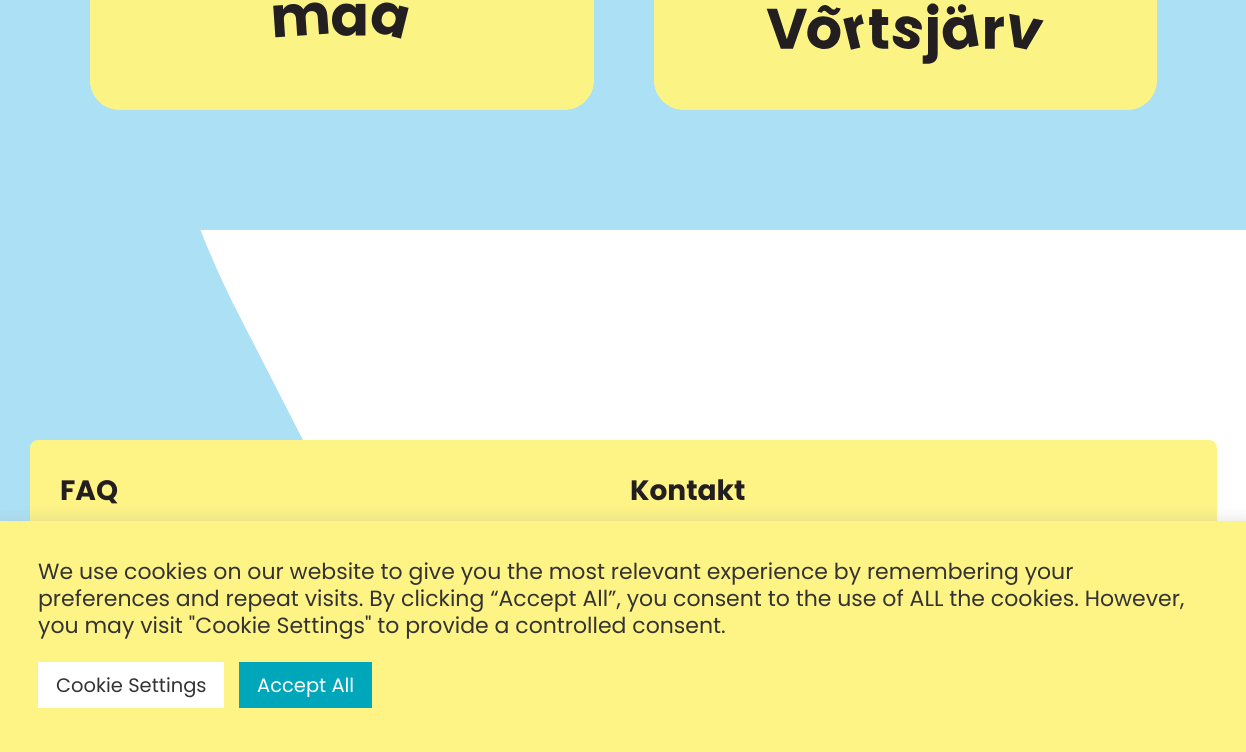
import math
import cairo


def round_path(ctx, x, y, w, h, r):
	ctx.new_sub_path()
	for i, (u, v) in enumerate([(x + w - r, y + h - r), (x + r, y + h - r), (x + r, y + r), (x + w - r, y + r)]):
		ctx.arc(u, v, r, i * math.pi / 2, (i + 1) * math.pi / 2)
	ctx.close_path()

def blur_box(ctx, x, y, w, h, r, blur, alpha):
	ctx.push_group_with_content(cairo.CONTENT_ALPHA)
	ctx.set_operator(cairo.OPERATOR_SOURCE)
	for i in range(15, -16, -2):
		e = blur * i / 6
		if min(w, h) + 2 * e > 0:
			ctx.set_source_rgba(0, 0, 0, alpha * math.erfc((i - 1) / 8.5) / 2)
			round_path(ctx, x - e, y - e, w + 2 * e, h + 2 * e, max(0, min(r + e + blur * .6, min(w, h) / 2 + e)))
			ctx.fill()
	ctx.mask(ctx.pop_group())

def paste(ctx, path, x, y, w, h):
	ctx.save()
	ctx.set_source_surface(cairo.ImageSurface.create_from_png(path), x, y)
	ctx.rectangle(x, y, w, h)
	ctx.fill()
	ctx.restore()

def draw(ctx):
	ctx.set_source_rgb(1, 1, 1)
	ctx.paint()
	paste(ctx, 'media/1.png', 0, 230, 303, 291)
	ctx.set_source_rgb(0.675, 0.878, 0.957)
	ctx.rectangle(0, 0, 1246, 230)
	ctx.fill()
	ctx.set_source_rgb(0.984, 0.957, 0.522)
	round_path(ctx, 90, -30, 504, 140, 30)
	ctx.fill()
	paste(ctx, 'media/2.png', 90, 2, 503, 107)
	round_path(ctx, 654, -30, 503, 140, 30)
	ctx.fill()
	paste(ctx, 'media/3.png', 654, 3, 390, 106)
	ctx.set_source_rgb(0.996, 0.953, 0.522)
	round_path(ctx, 30, 440, 1187, 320, 8)
	ctx.fill()
	ctx.select_font_face('Poppins', cairo.FONT_SLANT_NORMAL, cairo.FONT_WEIGHT_BOLD)
	ctx.set_font_size(28)
	ctx.set_source_rgb(0.137, 0.122, 0.125)
	ctx.move_to(60, 500)
	ctx.show_text('FAQ')
	ctx.move_to(630, 500)
	ctx.show_text('Kontakt')
	ctx.set_source_rgb(0.675, 0.671, 0.671)
	blur_box(ctx, 0, 519, 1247, 233, 0, 7.5, 0.3)
	ctx.set_source_rgb(0.996, 0.953, 0.522)
	ctx.rectangle(0, 521, 1246, 231)
	ctx.fill()
	ctx.select_font_face('Poppins')
	ctx.set_font_size(22)
	ctx.set_source_rgb(0.2, 0.2, 0.2)
	for x, y, s in [
		(38, 579, 'We use cookies on our website to give you the most relevant experience by remembering your'),
		(38, 606, 'preferences and repeat visits. By clicking “Accept All”, you consent to the use of ALL the cookies. However,'),
		(38, 633, 'you may visit "Cookie Settings" to provide a controlled consent.'),
	]:
		ctx.move_to(x, y)
		ctx.show_text(s)
	ctx.set_source_rgb(1, 1, 1)
	ctx.rectangle(38, 662, 186, 46)
	ctx.fill()
	ctx.set_font_size(19.5)
	ctx.set_source_rgb(0.2, 0.2, 0.2)
	ctx.move_to(56, 692)
	ctx.show_text('Cookie Settings')
	ctx.set_source_rgb(0, 0.651, 0.729)
	ctx.rectangle(239, 662, 133, 46)
	ctx.fill()
	ctx.set_source_rgb(1, 1, 1)
	ctx.move_to(257, 692)
	ctx.show_text('Accept All')


surface = cairo.ImageSurface(cairo.FORMAT_RGB24, 1246, 752)
ctx = cairo.Context(surface)
options = cairo.FontOptions()
options.set_hint_metrics(cairo.HINT_METRICS_OFF)
options.set_hint_style(cairo.HINT_STYLE_NONE)
ctx.set_font_options(options)
ctx.set_miter_limit(4)
draw(ctx)
surface.write_to_png('image.png')
